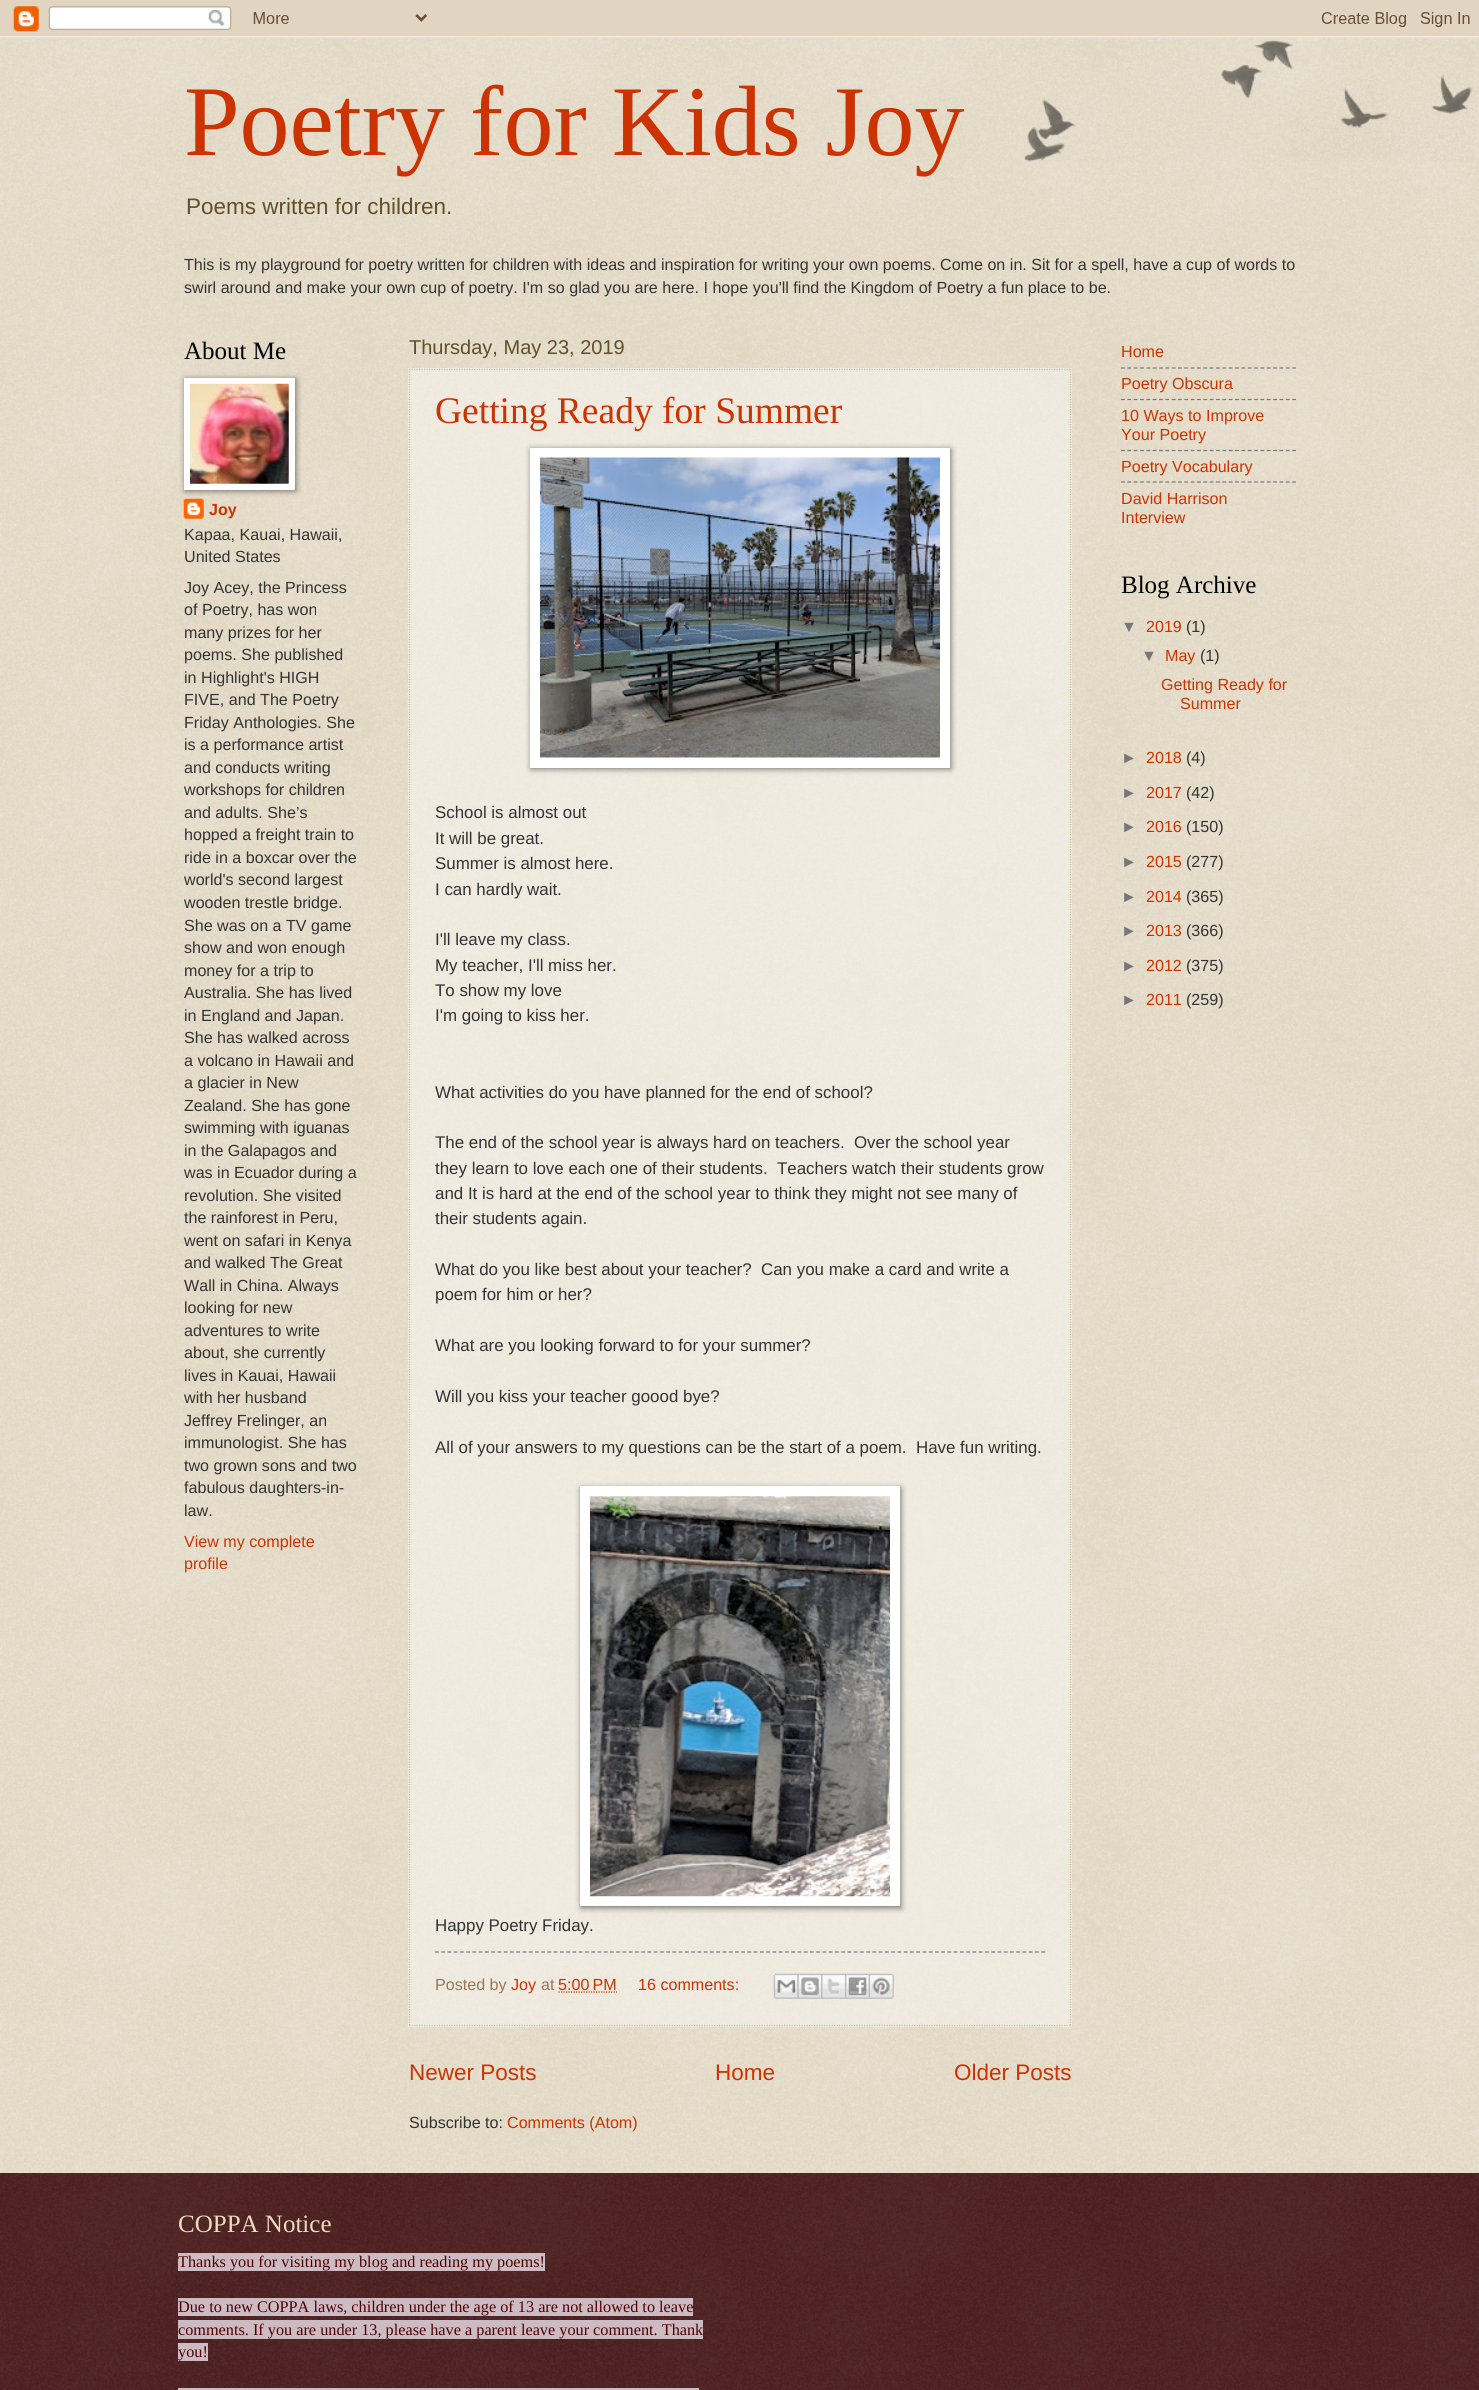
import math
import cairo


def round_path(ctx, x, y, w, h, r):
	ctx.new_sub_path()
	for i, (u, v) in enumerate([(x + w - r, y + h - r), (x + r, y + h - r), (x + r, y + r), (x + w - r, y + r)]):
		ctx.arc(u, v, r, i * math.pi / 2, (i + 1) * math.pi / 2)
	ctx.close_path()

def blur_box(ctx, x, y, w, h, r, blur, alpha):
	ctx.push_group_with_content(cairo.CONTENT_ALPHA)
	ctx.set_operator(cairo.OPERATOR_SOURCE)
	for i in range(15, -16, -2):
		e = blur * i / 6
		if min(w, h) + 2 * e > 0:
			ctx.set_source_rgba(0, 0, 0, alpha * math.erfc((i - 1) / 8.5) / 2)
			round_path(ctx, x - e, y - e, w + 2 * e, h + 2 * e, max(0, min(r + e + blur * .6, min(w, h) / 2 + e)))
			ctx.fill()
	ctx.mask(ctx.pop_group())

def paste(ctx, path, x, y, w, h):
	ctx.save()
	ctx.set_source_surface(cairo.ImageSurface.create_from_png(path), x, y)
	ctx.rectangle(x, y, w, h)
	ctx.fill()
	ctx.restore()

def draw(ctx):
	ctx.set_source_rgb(0.8, 0.733, 0.6)
	ctx.paint()
	paste(ctx, 'media/1.png', 0, 36, 1479, 2137)
	paste(ctx, 'media/2.png', 0, 0, 1479, 38)
	paste(ctx, 'media/3.png', 1024, 40, 449, 122)
	ctx.select_font_face('Liberation Serif')
	ctx.set_font_size(100)
	ctx.set_source_rgb(0.8, 0.2, 0)
	ctx.move_to(184, 155)
	ctx.show_text('Poetry for Kids Joy')
	ctx.select_font_face('Liberation Sans')
	ctx.set_font_size(22.5)
	ctx.set_source_rgb(0.376, 0.314, 0.165)
	ctx.move_to(186, 214)
	ctx.show_text('Poems written for children.')
	ctx.set_font_size(16.1)
	ctx.set_source_rgb(0.2, 0.2, 0.2)
	for x, y, s in [
		(184, 270, 'This is my playground for poetry written for children with ideas and inspiration for writing your own poems.'),
		(940, 270, 'Come on in. Sit for a spell, have a cup of words to'),
		(184, 293, 'swirl around and make your own cup of poetry. I\'m so glad you are here. I hope you\'ll find the Kingdom of Poetry a fun place to be.'),
	]:
		ctx.move_to(x, y)
		ctx.show_text(s)
	ctx.select_font_face('Liberation Serif')
	ctx.set_font_size(25)
	ctx.set_source_rgb(0, 0, 0)
	ctx.move_to(184, 359)
	ctx.show_text('About Me')
	paste(ctx, 'media/5.png', 183, 498, 21, 21)
	ctx.set_source_rgb(0, 0, 0)
	blur_box(ctx, 185, 379, 111, 112, 0, 3, 0.5)
	ctx.set_source_rgb(1, 1, 1)
	ctx.rectangle(184, 378, 111, 112)
	ctx.fill()
	paste(ctx, 'media/4.png', 190, 383, 99, 101)
	ctx.select_font_face('Liberation Sans', cairo.FONT_SLANT_NORMAL, cairo.FONT_WEIGHT_BOLD)
	ctx.set_font_size(16.1)
	ctx.set_source_rgb(0.8, 0.2, 0)
	ctx.move_to(209, 515)
	ctx.show_text('Joy')
	ctx.select_font_face('Liberation Sans')
	ctx.set_source_rgb(0.2, 0.2, 0.2)
	for x, y, s in [
		(184, 540, 'Kapaa, Kauai, Hawaii,'),
		(184, 562, 'United States'),
		(184, 593, 'Joy Acey, the Princess'),
		(184, 615, 'of Poetry, has won'),
		(184, 638, 'many prizes for her'),
		(184, 660, 'poems. She published'),
		(184, 683, 'in Highlight\'s HIGH'),
		(184, 705, 'FIVE, and The Poetry'),
		(184, 728, 'Friday Anthologies. She'),
		(184, 750, 'is a performance artist'),
		(184, 773, 'and conducts writing'),
		(184, 795, 'workshops for children'),
		(184, 818, 'and adults. She’s'),
		(184, 840, 'hopped a freight train to'),
		(184, 863, 'ride in a boxcar over the'),
		(184, 885, 'world\'s second largest'),
		(184, 908, 'wooden trestle bridge.'),
		(184, 931, 'She was on a TV game'),
		(184, 953, 'show and won enough'),
		(184, 976, 'money for a trip to'),
		(184, 998, 'Australia. She has lived'),
		(184, 1021, 'in England and Japan.'),
		(184, 1043, 'She has walked across'),
		(184, 1066, 'a volcano in Hawaii and'),
		(184, 1088, 'a glacier in New'),
		(184, 1111, 'Zealand. She has gone'),
		(184, 1133, 'swimming with iguanas'),
		(184, 1156, 'in the Galapagos and'),
		(184, 1178, 'was in Ecuador during a'),
		(184, 1201, 'revolution. She visited'),
		(184, 1223, 'the rainforest in Peru,'),
		(184, 1246, 'went on safari in Kenya'),
		(184, 1268, 'and walked The Great'),
		(184, 1291, 'Wall in China. Always'),
		(184, 1313, 'looking for new'),
		(184, 1336, 'adventures to write'),
		(184, 1358, 'about, she currently'),
		(184, 1381, 'lives in Kauai, Hawaii'),
		(184, 1403, 'with her husband'),
		(184, 1426, 'Jeffrey Frelinger, an'),
		(184, 1448, 'immunologist. She has'),
		(184, 1471, 'two grown sons and two'),
		(184, 1493, 'fabulous daughters-in-'),
		(184, 1516, 'law.'),
	]:
		ctx.move_to(x, y)
		ctx.show_text(s)
	ctx.set_source_rgb(0.8, 0.2, 0)
	ctx.move_to(184, 1547)
	ctx.show_text('View my complete')
	ctx.move_to(184, 1569)
	ctx.show_text('profile')
	ctx.set_font_size(20)
	ctx.set_source_rgb(0.376, 0.314, 0.165)
	ctx.move_to(409, 354)
	ctx.show_text('Thursday, May 23, 2019')
	ctx.set_source_rgba(1, 1, 1, 0.4)
	ctx.rectangle(408, 368, 664, 1659)
	ctx.fill()
	ctx.new_path()
	ctx.move_to(409, 369.5)
	ctx.line_to(1071, 369.5)
	ctx.set_source_rgb(0.8, 0.733, 0.6)
	ctx.set_line_width(1.2)
	ctx.set_dash([1.25, 1.25])
	ctx.stroke()
	ctx.new_path()
	ctx.move_to(1070.5, 369)
	ctx.line_to(1070.5, 2026)
	ctx.stroke()
	ctx.new_path()
	ctx.move_to(409, 2025.5)
	ctx.line_to(1071, 2025.5)
	ctx.stroke()
	ctx.new_path()
	ctx.move_to(409.5, 369)
	ctx.line_to(409.5, 2026)
	ctx.stroke()
	ctx.select_font_face('Liberation Serif')
	ctx.set_font_size(37.5)
	ctx.set_source_rgb(0.8, 0.2, 0)
	ctx.move_to(435, 423)
	ctx.show_text('Getting Ready for Summer')
	ctx.set_source_rgb(0, 0, 0)
	blur_box(ctx, 531, 449, 420, 320, 0, 3, 0.5)
	ctx.set_source_rgb(1, 1, 1)
	ctx.rectangle(530, 448, 420, 320)
	ctx.fill()
	paste(ctx, 'media/6.png', 540, 457, 400, 301)
	ctx.select_font_face('Liberation Sans')
	ctx.set_font_size(16.9)
	ctx.set_source_rgb(0.2, 0.2, 0.2)
	for x, y, s in [
		(435, 818, 'School is almost out'),
		(435, 844, 'It will be great.'),
		(435, 869, 'Summer is almost here.'),
		(435, 895, 'I can hardly wait.'),
		(435, 945, 'I\'ll leave my class.'),
		(435, 971, 'My teacher, I\'ll miss her.'),
		(435, 996, 'To show my love'),
		(435, 1021, 'I\'m going to kiss her.'),
		(435, 1098, 'What activities do you have planned for the end of school?'),
		(435, 1148, 'The end of the school year is always hard on teachers.  Over the school year'),
		(435, 1174, 'they learn to love each one of their students.  Teachers watch their students grow'),
		(435, 1199, 'and It is hard at the end of the school year to think they might not see many of'),
		(435, 1224, 'their students again.'),
		(435, 1275, 'What do you like best about your teacher?  Can you make a card and write a'),
		(435, 1300, 'poem for him or her?'),
		(435, 1351, 'What are you looking forward to for your summer?'),
		(435, 1402, 'Will you kiss your teacher goood bye?'),
		(435, 1453, 'All of your answers to my questions can be the start of a poem.  Have fun writing.'),
	]:
		ctx.move_to(x, y)
		ctx.show_text(s)
	ctx.set_source_rgb(0, 0, 0)
	blur_box(ctx, 581, 1488, 320, 420, 0, 3, 0.5)
	ctx.set_source_rgb(1, 1, 1)
	ctx.rectangle(580, 1486, 320, 420)
	ctx.fill()
	paste(ctx, 'media/7.png', 590, 1496, 300, 401)
	ctx.set_source_rgb(0.2, 0.2, 0.2)
	ctx.move_to(435, 1931)
	ctx.show_text('Happy Poetry Friday.')
	ctx.new_path()
	ctx.move_to(435, 1952)
	ctx.line_to(1045, 1952)
	ctx.set_source_rgb(0.467, 0.467, 0.467)
	ctx.set_dash([3.75, 2.5])
	ctx.stroke()
	ctx.set_font_size(16.1)
	ctx.set_source_rgb(0.6, 0.467, 0.333)
	ctx.move_to(435, 1990)
	ctx.show_text('Posted by')
	ctx.set_source_rgb(0.8, 0.2, 0)
	ctx.move_to(511, 1990)
	ctx.show_text('Joy')
	ctx.set_source_rgb(0.6, 0.467, 0.333)
	ctx.move_to(541, 1990)
	ctx.show_text('at')
	ctx.set_source_rgb(0.8, 0.2, 0)
	ctx.move_to(558, 1990)
	ctx.show_text('5:00 PM')
	ctx.new_path()
	ctx.move_to(558.5, 1992)
	ctx.line_to(617, 1992)
	ctx.set_dash([1.25, 1.25])
	ctx.stroke()
	ctx.move_to(638, 1990)
	ctx.show_text('16 comments:')
	paste(ctx, 'media/8.png', 773, 1973, 26, 26)
	paste(ctx, 'media/9.png', 797, 1973, 26, 26)
	paste(ctx, 'media/10.png', 821, 1973, 26, 26)
	paste(ctx, 'media/11.png', 845, 1973, 25, 26)
	paste(ctx, 'media/12.png', 868, 1973, 26, 26)
	ctx.set_font_size(22.5)
	for x, y, s in [
		(409, 2080, 'Newer Posts'),
		(715, 2080, 'Home'),
		(954, 2080, 'Older Posts'),
	]:
		ctx.move_to(x, y)
		ctx.show_text(s)
	ctx.set_font_size(16.1)
	ctx.set_source_rgb(0.2, 0.2, 0.2)
	ctx.move_to(409, 2128)
	ctx.show_text('Subscribe to:')
	ctx.set_source_rgb(0.8, 0.2, 0)
	ctx.move_to(507, 2128)
	ctx.show_text('Comments (Atom)')
	ctx.move_to(1121, 357)
	ctx.show_text('Home')
	ctx.new_path()
	ctx.move_to(1121, 368)
	ctx.line_to(1296, 368)
	ctx.set_source_rgb(0.467, 0.467, 0.467)
	ctx.set_dash([3.75, 2.59])
	ctx.stroke()
	ctx.set_source_rgb(0.8, 0.2, 0)
	ctx.move_to(1121, 389)
	ctx.show_text('Poetry Obscura')
	ctx.new_path()
	ctx.move_to(1121, 399.5)
	ctx.line_to(1296, 399.5)
	ctx.set_source_rgb(0.467, 0.467, 0.467)
	ctx.stroke()
	ctx.set_source_rgb(0.8, 0.2, 0)
	ctx.move_to(1121, 421)
	ctx.show_text('10 Ways to Improve')
	ctx.move_to(1121, 440)
	ctx.show_text('Your Poetry')
	ctx.new_path()
	ctx.move_to(1121, 450.5)
	ctx.line_to(1296, 450.5)
	ctx.set_source_rgb(0.467, 0.467, 0.467)
	ctx.stroke()
	ctx.set_source_rgb(0.8, 0.2, 0)
	ctx.move_to(1121, 472)
	ctx.show_text('Poetry Vocabulary')
	ctx.new_path()
	ctx.move_to(1121, 482)
	ctx.line_to(1296, 482)
	ctx.set_source_rgb(0.467, 0.467, 0.467)
	ctx.stroke()
	ctx.set_source_rgb(0.8, 0.2, 0)
	ctx.move_to(1121, 504)
	ctx.show_text('David Harrison')
	ctx.move_to(1121, 523)
	ctx.show_text('Interview')
	ctx.select_font_face('Liberation Serif')
	ctx.set_font_size(25)
	ctx.set_source_rgb(0, 0, 0)
	ctx.move_to(1121, 593)
	ctx.show_text('Blog Archive')
	ctx.select_font_face('Liberation Sans')
	ctx.set_font_size(16.1)
	ctx.set_source_rgb(0.467, 0.467, 0.467)
	ctx.move_to(1121, 632)
	ctx.show_text('▼')
	ctx.set_source_rgb(0.8, 0.2, 0)
	ctx.move_to(1146, 632)
	ctx.show_text('2019')
	ctx.set_source_rgb(0.2, 0.2, 0.2)
	ctx.move_to(1186, 632)
	ctx.show_text('(1)')
	ctx.set_source_rgb(0.467, 0.467, 0.467)
	ctx.move_to(1141, 661)
	ctx.show_text('▼')
	ctx.set_source_rgb(0.8, 0.2, 0)
	ctx.move_to(1165, 661)
	ctx.show_text('May')
	ctx.set_source_rgb(0.2, 0.2, 0.2)
	ctx.move_to(1200, 661)
	ctx.show_text('(1)')
	ctx.set_source_rgb(0.8, 0.2, 0)
	ctx.move_to(1161, 690)
	ctx.show_text('Getting Ready for')
	ctx.move_to(1180, 709)
	ctx.show_text('Summer')
	ctx.set_source_rgb(0.467, 0.467, 0.467)
	ctx.move_to(1121, 763)
	ctx.show_text('►')
	ctx.set_source_rgb(0.8, 0.2, 0)
	ctx.move_to(1146, 763)
	ctx.show_text('2018')
	ctx.set_source_rgb(0.2, 0.2, 0.2)
	ctx.move_to(1186, 763)
	ctx.show_text('(4)')
	ctx.set_source_rgb(0.467, 0.467, 0.467)
	ctx.move_to(1121, 798)
	ctx.show_text('►')
	ctx.set_source_rgb(0.8, 0.2, 0)
	ctx.move_to(1146, 798)
	ctx.show_text('2017')
	ctx.set_source_rgb(0.2, 0.2, 0.2)
	ctx.move_to(1186, 798)
	ctx.show_text('(42)')
	ctx.set_source_rgb(0.467, 0.467, 0.467)
	ctx.move_to(1121, 832)
	ctx.show_text('►')
	ctx.set_source_rgb(0.8, 0.2, 0)
	ctx.move_to(1146, 832)
	ctx.show_text('2016')
	ctx.set_source_rgb(0.2, 0.2, 0.2)
	ctx.move_to(1186, 832)
	ctx.show_text('(150)')
	ctx.set_source_rgb(0.467, 0.467, 0.467)
	ctx.move_to(1121, 867)
	ctx.show_text('►')
	ctx.set_source_rgb(0.8, 0.2, 0)
	ctx.move_to(1146, 867)
	ctx.show_text('2015')
	ctx.set_source_rgb(0.2, 0.2, 0.2)
	ctx.move_to(1186, 867)
	ctx.show_text('(277)')
	ctx.set_source_rgb(0.467, 0.467, 0.467)
	ctx.move_to(1121, 902)
	ctx.show_text('►')
	ctx.set_source_rgb(0.8, 0.2, 0)
	ctx.move_to(1146, 902)
	ctx.show_text('2014')
	ctx.set_source_rgb(0.2, 0.2, 0.2)
	ctx.move_to(1186, 902)
	ctx.show_text('(365)')
	ctx.set_source_rgb(0.467, 0.467, 0.467)
	ctx.move_to(1121, 936)
	ctx.show_text('►')
	ctx.set_source_rgb(0.8, 0.2, 0)
	ctx.move_to(1146, 936)
	ctx.show_text('2013')
	ctx.set_source_rgb(0.2, 0.2, 0.2)
	ctx.move_to(1186, 936)
	ctx.show_text('(366)')
	ctx.set_source_rgb(0.467, 0.467, 0.467)
	ctx.move_to(1121, 971)
	ctx.show_text('►')
	ctx.set_source_rgb(0.8, 0.2, 0)
	ctx.move_to(1146, 971)
	ctx.show_text('2012')
	ctx.set_source_rgb(0.2, 0.2, 0.2)
	ctx.move_to(1186, 971)
	ctx.show_text('(375)')
	ctx.set_source_rgb(0.467, 0.467, 0.467)
	ctx.move_to(1121, 1005)
	ctx.show_text('►')
	ctx.set_source_rgb(0.8, 0.2, 0)
	ctx.move_to(1146, 1005)
	ctx.show_text('2011')
	ctx.set_source_rgb(0.2, 0.2, 0.2)
	ctx.move_to(1186, 1005)
	ctx.show_text('(259)')
	ctx.set_source_rgb(0.2, 0, 0)
	ctx.rectangle(0, 2173, 1479, 217)
	ctx.fill()
	paste(ctx, 'media/13.png', 0, 2172, 1479, 218)
	ctx.select_font_face('Liberation Serif')
	ctx.set_font_size(25)
	ctx.set_source_rgb(0.933, 0.867, 0.733)
	ctx.move_to(178, 2232)
	ctx.show_text('COPPA Notice')
	ctx.set_source_rgb(0.8, 0.733, 0.761)
	ctx.rectangle(178, 2253, 367, 18)
	ctx.fill()
	ctx.set_font_size(16.25)
	ctx.set_source_rgb(0.306, 0, 0)
	ctx.move_to(178, 2267)
	ctx.show_text('Thanks you for visiting my blog and reading my poems!')
	ctx.set_source_rgb(0.8, 0.733, 0.761)
	ctx.rectangle(178, 2298, 515, 18)
	ctx.fill()
	ctx.set_source_rgb(0.306, 0, 0)
	ctx.move_to(178, 2312)
	ctx.show_text('Due to new COPPA laws, children under the age of 13 are not allowed to leave')
	ctx.set_source_rgb(0.8, 0.733, 0.761)
	ctx.rectangle(178, 2320, 525, 19)
	ctx.fill()
	ctx.set_source_rgb(0.306, 0, 0)
	ctx.move_to(178, 2335)
	ctx.show_text('comments. If you are under 13, please have a parent leave your comment. Thank')
	ctx.set_source_rgb(0.8, 0.733, 0.761)
	ctx.rectangle(178, 2343, 30, 18)
	ctx.fill()
	ctx.set_source_rgb(0.306, 0, 0)
	ctx.move_to(178, 2357)
	ctx.show_text('you!')
	ctx.set_source_rgb(0.8, 0.733, 0.761)
	ctx.rectangle(178, 2388, 521, 2)
	ctx.fill()


surface = cairo.ImageSurface(cairo.FORMAT_RGB24, 1479, 2390)
ctx = cairo.Context(surface)
options = cairo.FontOptions()
options.set_hint_metrics(cairo.HINT_METRICS_OFF)
options.set_hint_style(cairo.HINT_STYLE_NONE)
ctx.set_font_options(options)
ctx.set_miter_limit(4)
draw(ctx)
surface.write_to_png('image.png')
